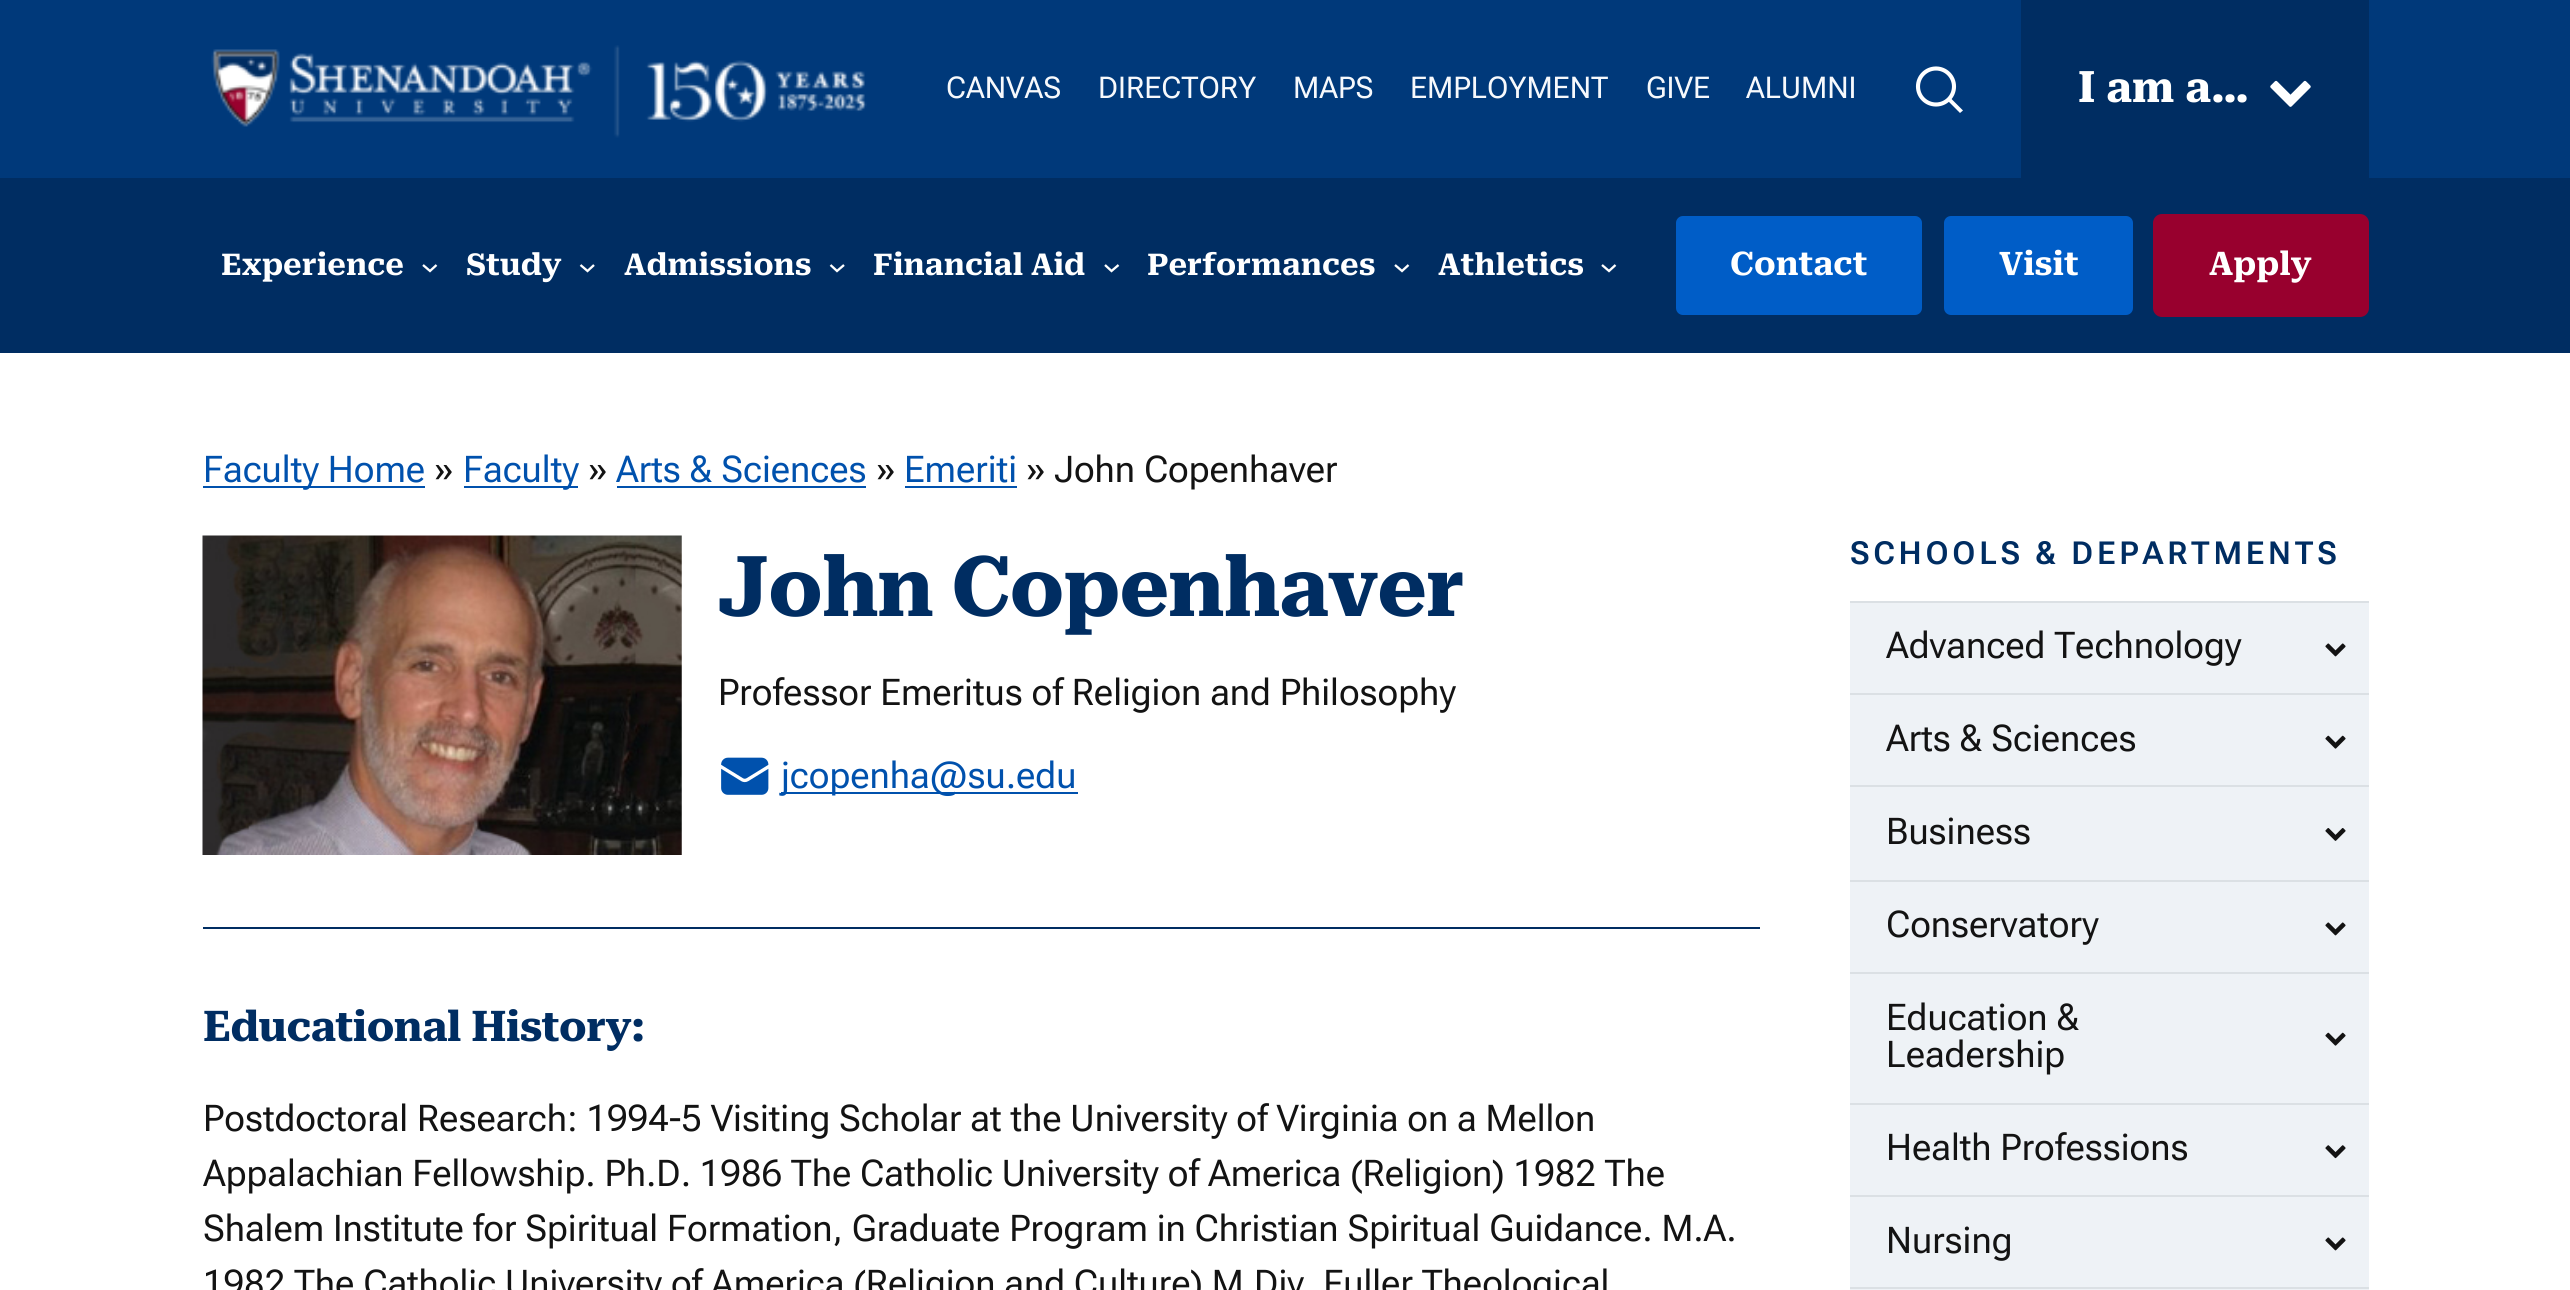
import math
import cairo


def write_spaced(ctx, x, y, s, letter, word):
	ctx.move_to(x, y)
	for ch in s:
		ctx.show_text(ch)
		ctx.rel_move_to(letter + word * (ch == ' '), 0)

def round_path(ctx, x, y, w, h, r):
	ctx.new_sub_path()
	for i, (u, v) in enumerate([(x + w - r, y + h - r), (x + r, y + h - r), (x + r, y + r), (x + w - r, y + r)]):
		ctx.arc(u, v, r, i * math.pi / 2, (i + 1) * math.pi / 2)
	ctx.close_path()

def paste(ctx, path, x, y, w, h):
	ctx.save()
	ctx.set_source_surface(cairo.ImageSurface.create_from_png(path), x, y)
	ctx.rectangle(x, y, w, h)
	ctx.fill()
	ctx.restore()

def draw(ctx):
	ctx.set_source_rgb(1, 1, 1)
	ctx.paint()
	ctx.set_source_rgb(0, 0.224, 0.478)
	ctx.rectangle(0, 0, 2570, 178)
	ctx.fill()
	paste(ctx, 'media/1.png', 211, 45, 656, 93)
	ctx.select_font_face('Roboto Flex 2')
	ctx.set_font_size(30)
	ctx.set_source_rgb(0.965, 0.976, 0.988)
	for x, y, s in [
		(946, 98, 'CANVAS'),
		(1098, 98, 'DIRECTORY'),
		(1293, 98, 'MAPS'),
		(1410, 98, 'EMPLOYMENT'),
		(1646, 98, 'GIVE'),
		(1746, 98, 'ALUMNI'),
	]:
		ctx.move_to(x, y)
		ctx.show_text(s)
	ctx.set_source_rgb(1, 1, 1)
	ctx.set_fill_rule(cairo.FILL_RULE_EVEN_ODD)
	ctx.new_path()
	ctx.move_to(1948, 101)
	ctx.line_to(1960, 113)
	ctx.line_to(1963, 110.5)
	ctx.line_to(1950.5, 98)
	ctx.close_path()
	ctx.fill()
	ctx.arc(1936, 86.5, 18, 0, 2 * math.pi)
	ctx.set_line_width(4.1)
	ctx.stroke()
	ctx.set_source_rgb(0, 0.176, 0.384)
	ctx.rectangle(2021, 0, 348, 178)
	ctx.fill()
	ctx.select_font_face('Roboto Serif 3', cairo.FONT_SLANT_NORMAL, cairo.FONT_WEIGHT_BOLD)
	ctx.set_font_size(43.5)
	ctx.set_source_rgb(1, 1, 1)
	ctx.move_to(2078, 102)
	ctx.show_text('I am a…')
	paste(ctx, 'media/2.png', 2270, 80, 41, 27)
	ctx.set_source_rgb(0, 0.176, 0.384)
	ctx.rectangle(0, 178, 2570, 175)
	ctx.fill()
	ctx.select_font_face('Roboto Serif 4', cairo.FONT_SLANT_NORMAL, cairo.FONT_WEIGHT_BOLD)
	ctx.set_font_size(30)
	ctx.set_source_rgb(1, 1, 1)
	ctx.move_to(221, 275)
	ctx.show_text('Experience')
	ctx.new_path()
	ctx.move_to(423, 265)
	ctx.line_to(430, 271)
	ctx.line_to(436.5, 265)
	ctx.set_line_width(2.3)
	ctx.stroke()
	ctx.move_to(466, 275)
	ctx.show_text('Study')
	ctx.new_path()
	ctx.move_to(580.5, 265)
	ctx.line_to(587.5, 271)
	ctx.line_to(594, 265)
	ctx.stroke()
	ctx.move_to(624, 275)
	ctx.show_text('Admissions')
	ctx.new_path()
	ctx.move_to(830.5, 265)
	ctx.line_to(837, 271)
	ctx.line_to(844, 265)
	ctx.stroke()
	ctx.move_to(873, 275)
	ctx.show_text('Financial Aid')
	ctx.new_path()
	ctx.move_to(1105, 265)
	ctx.line_to(1111.5, 271)
	ctx.line_to(1118.5, 265)
	ctx.stroke()
	ctx.move_to(1147, 275)
	ctx.show_text('Performances')
	ctx.new_path()
	ctx.move_to(1395, 265)
	ctx.line_to(1402, 271)
	ctx.line_to(1408.5, 265)
	ctx.stroke()
	ctx.move_to(1438, 275)
	ctx.show_text('Athletics')
	ctx.new_path()
	ctx.move_to(1602, 265)
	ctx.line_to(1609, 271)
	ctx.line_to(1615.5, 265)
	ctx.stroke()
	ctx.set_source_rgb(0, 0.365, 0.78)
	round_path(ctx, 1675, 215, 248, 101, 8)
	ctx.fill_preserve()
	ctx.set_source_rgb(0, 0.176, 0.384)
	ctx.set_line_width(2)
	ctx.stroke()
	ctx.select_font_face('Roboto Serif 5', cairo.FONT_SLANT_NORMAL, cairo.FONT_WEIGHT_BOLD)
	ctx.set_font_size(32.5)
	ctx.set_source_rgb(1, 1, 1)
	ctx.move_to(1730, 275)
	ctx.show_text('Contact')
	ctx.set_source_rgb(0, 0.365, 0.78)
	round_path(ctx, 1943, 215, 191, 101, 8)
	ctx.fill_preserve()
	ctx.set_source_rgb(0, 0.176, 0.384)
	ctx.stroke()
	ctx.set_source_rgb(1, 1, 1)
	ctx.move_to(1999, 275)
	ctx.show_text('Visit')
	ctx.set_source_rgb(0.596, 0, 0.18)
	round_path(ctx, 2154, 215, 214, 101, 8)
	ctx.fill_preserve()
	ctx.stroke()
	ctx.set_source_rgb(1, 1, 1)
	ctx.move_to(2209, 275)
	ctx.show_text('Apply')
	ctx.set_source_rgb(0, 0.318, 0.678)
	ctx.rectangle(203, 486, 222, 2)
	ctx.fill()
	ctx.select_font_face('Roboto Flex')
	ctx.set_font_size(36.8)
	ctx.move_to(203, 482)
	ctx.show_text('Faculty Home')
	ctx.set_source_rgb(0.075, 0.075, 0.075)
	ctx.move_to(434, 482)
	ctx.show_text('»')
	ctx.set_source_rgb(0, 0.318, 0.678)
	ctx.rectangle(464, 486, 114, 2)
	ctx.fill()
	ctx.move_to(463, 482)
	ctx.show_text('Faculty')
	ctx.set_source_rgb(0.075, 0.075, 0.075)
	ctx.move_to(588, 482)
	ctx.show_text('»')
	ctx.set_source_rgb(0, 0.318, 0.678)
	ctx.move_to(616, 482)
	ctx.show_text('Arts & Sciences')
	ctx.rectangle(617, 486, 249, 2)
	ctx.fill()
	ctx.set_source_rgb(0.075, 0.075, 0.075)
	ctx.move_to(876, 482)
	ctx.show_text('»')
	ctx.set_source_rgb(0, 0.318, 0.678)
	ctx.move_to(904, 482)
	ctx.show_text('Emeriti')
	ctx.rectangle(905, 486, 112, 2)
	ctx.fill()
	ctx.set_source_rgb(0.075, 0.075, 0.075)
	ctx.move_to(1026, 482)
	ctx.show_text('» John Copenhaver')
	ctx.set_source_rgb(0, 0.176, 0.384)
	ctx.rectangle(203, 927, 1557, 2)
	ctx.fill()
	paste(ctx, 'media/3.png', 202, 535, 480, 320)
	ctx.select_font_face('Roboto Serif', cairo.FONT_SLANT_NORMAL, cairo.FONT_WEIGHT_BOLD)
	ctx.set_font_size(84.25)
	write_spaced(ctx, 718, 616, 'John Copenhaver', -0.8, -2)
	ctx.select_font_face('Roboto Flex')
	ctx.set_font_size(36.8)
	ctx.set_source_rgb(0.075, 0.075, 0.075)
	ctx.move_to(718, 705)
	ctx.show_text('Professor Emeritus of Religion and Philosophy')
	paste(ctx, 'media/4.png', 721, 757, 48, 38)
	ctx.set_source_rgb(0, 0.318, 0.678)
	ctx.rectangle(781, 792, 297, 2)
	ctx.fill()
	ctx.move_to(781, 788)
	ctx.show_text('jcopenha@su.edu')
	ctx.select_font_face('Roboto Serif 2', cairo.FONT_SLANT_NORMAL, cairo.FONT_WEIGHT_BOLD)
	ctx.set_font_size(42.5)
	ctx.set_source_rgb(0, 0.176, 0.384)
	write_spaced(ctx, 203, 1041, 'Educational History:', -0.4, 0)
	ctx.select_font_face('Roboto Flex')
	ctx.set_font_size(36.8)
	ctx.set_source_rgb(0.075, 0.075, 0.075)
	for x, y, s in [
		(203, 1131, 'Postdoctoral Research: 1994-5 Visiting Scholar at the University of Virginia on a Mellon'),
		(203, 1186, 'Appalachian Fellowship. Ph.D. 1986 The Catholic University of America (Religion) 1982 The'),
		(203, 1241, 'Shalem Institute for Spiritual Formation, Graduate Program in Christian Spiritual Guidance. M.A.'),
		(203, 1296, '1982 The Catholic University of America (Religion and Culture) M.Div. Fuller Theological'),
	]:
		ctx.move_to(x, y)
		ctx.show_text(s)
	ctx.select_font_face('Roboto Flex SemiBold')
	ctx.set_font_size(31.7)
	ctx.set_source_rgb(0, 0.176, 0.384)
	write_spaced(ctx, 1850, 564, 'SCHOOLS & DEPARTMENTS', 3.8, 0)
	ctx.set_source_rgb(0.933, 0.949, 0.961)
	ctx.rectangle(1850, 603, 519, 687)
	ctx.fill()
	ctx.set_source_rgb(0.859, 0.878, 0.894)
	ctx.rectangle(1850, 601, 519, 2)
	ctx.rectangle(1850, 693, 519, 2)
	ctx.fill()
	ctx.select_font_face('Roboto Flex')
	ctx.set_font_size(36.8)
	ctx.set_source_rgb(0.075, 0.075, 0.075)
	ctx.move_to(1886, 658)
	ctx.show_text('Advanced Technology')
	paste(ctx, 'media/5.png', 2325, 643, 21, 14)
	ctx.set_source_rgb(0.859, 0.878, 0.894)
	ctx.rectangle(1850, 785, 519, 2)
	ctx.fill()
	ctx.set_source_rgb(0.075, 0.075, 0.075)
	ctx.move_to(1886, 751)
	ctx.show_text('Arts & Sciences')
	paste(ctx, 'media/6.png', 2325, 735, 21, 14)
	ctx.set_source_rgb(0.859, 0.878, 0.894)
	ctx.rectangle(1850, 880, 519, 2)
	ctx.fill()
	ctx.set_source_rgb(0.075, 0.075, 0.075)
	ctx.move_to(1886, 844)
	ctx.show_text('Business')
	paste(ctx, 'media/7.png', 2325, 828, 21, 13)
	ctx.set_source_rgb(0.859, 0.878, 0.894)
	ctx.rectangle(1850, 972, 519, 2)
	ctx.fill()
	ctx.set_source_rgb(0.075, 0.075, 0.075)
	ctx.move_to(1886, 937)
	ctx.show_text('Conservatory')
	paste(ctx, 'media/5.png', 2325, 922, 21, 14)
	ctx.set_source_rgb(0.859, 0.878, 0.894)
	ctx.rectangle(1850, 1103, 519, 2)
	ctx.fill()
	ctx.set_source_rgb(0.075, 0.075, 0.075)
	ctx.move_to(1886, 1030)
	ctx.show_text('Education &')
	ctx.move_to(1886, 1067)
	ctx.show_text('Leadership')
	paste(ctx, 'media/6.png', 2325, 1032, 21, 14)
	ctx.set_source_rgb(0.859, 0.878, 0.894)
	ctx.rectangle(1850, 1195, 519, 2)
	ctx.fill()
	ctx.set_source_rgb(0.075, 0.075, 0.075)
	ctx.move_to(1886, 1160)
	ctx.show_text('Health Professions')
	paste(ctx, 'media/8.png', 2325, 1145, 21, 14)
	ctx.set_source_rgb(0.859, 0.878, 0.894)
	ctx.rectangle(1850, 1287, 519, 2)
	ctx.fill()
	ctx.set_source_rgb(0.075, 0.075, 0.075)
	ctx.move_to(1886, 1253)
	ctx.show_text('Nursing')
	paste(ctx, 'media/5.png', 2325, 1237, 21, 14)


surface = cairo.ImageSurface(cairo.FORMAT_RGB24, 2570, 1290)
ctx = cairo.Context(surface)
options = cairo.FontOptions()
options.set_hint_metrics(cairo.HINT_METRICS_OFF)
options.set_hint_style(cairo.HINT_STYLE_NONE)
ctx.set_font_options(options)
ctx.set_miter_limit(4)
draw(ctx)
surface.write_to_png('image.png')
